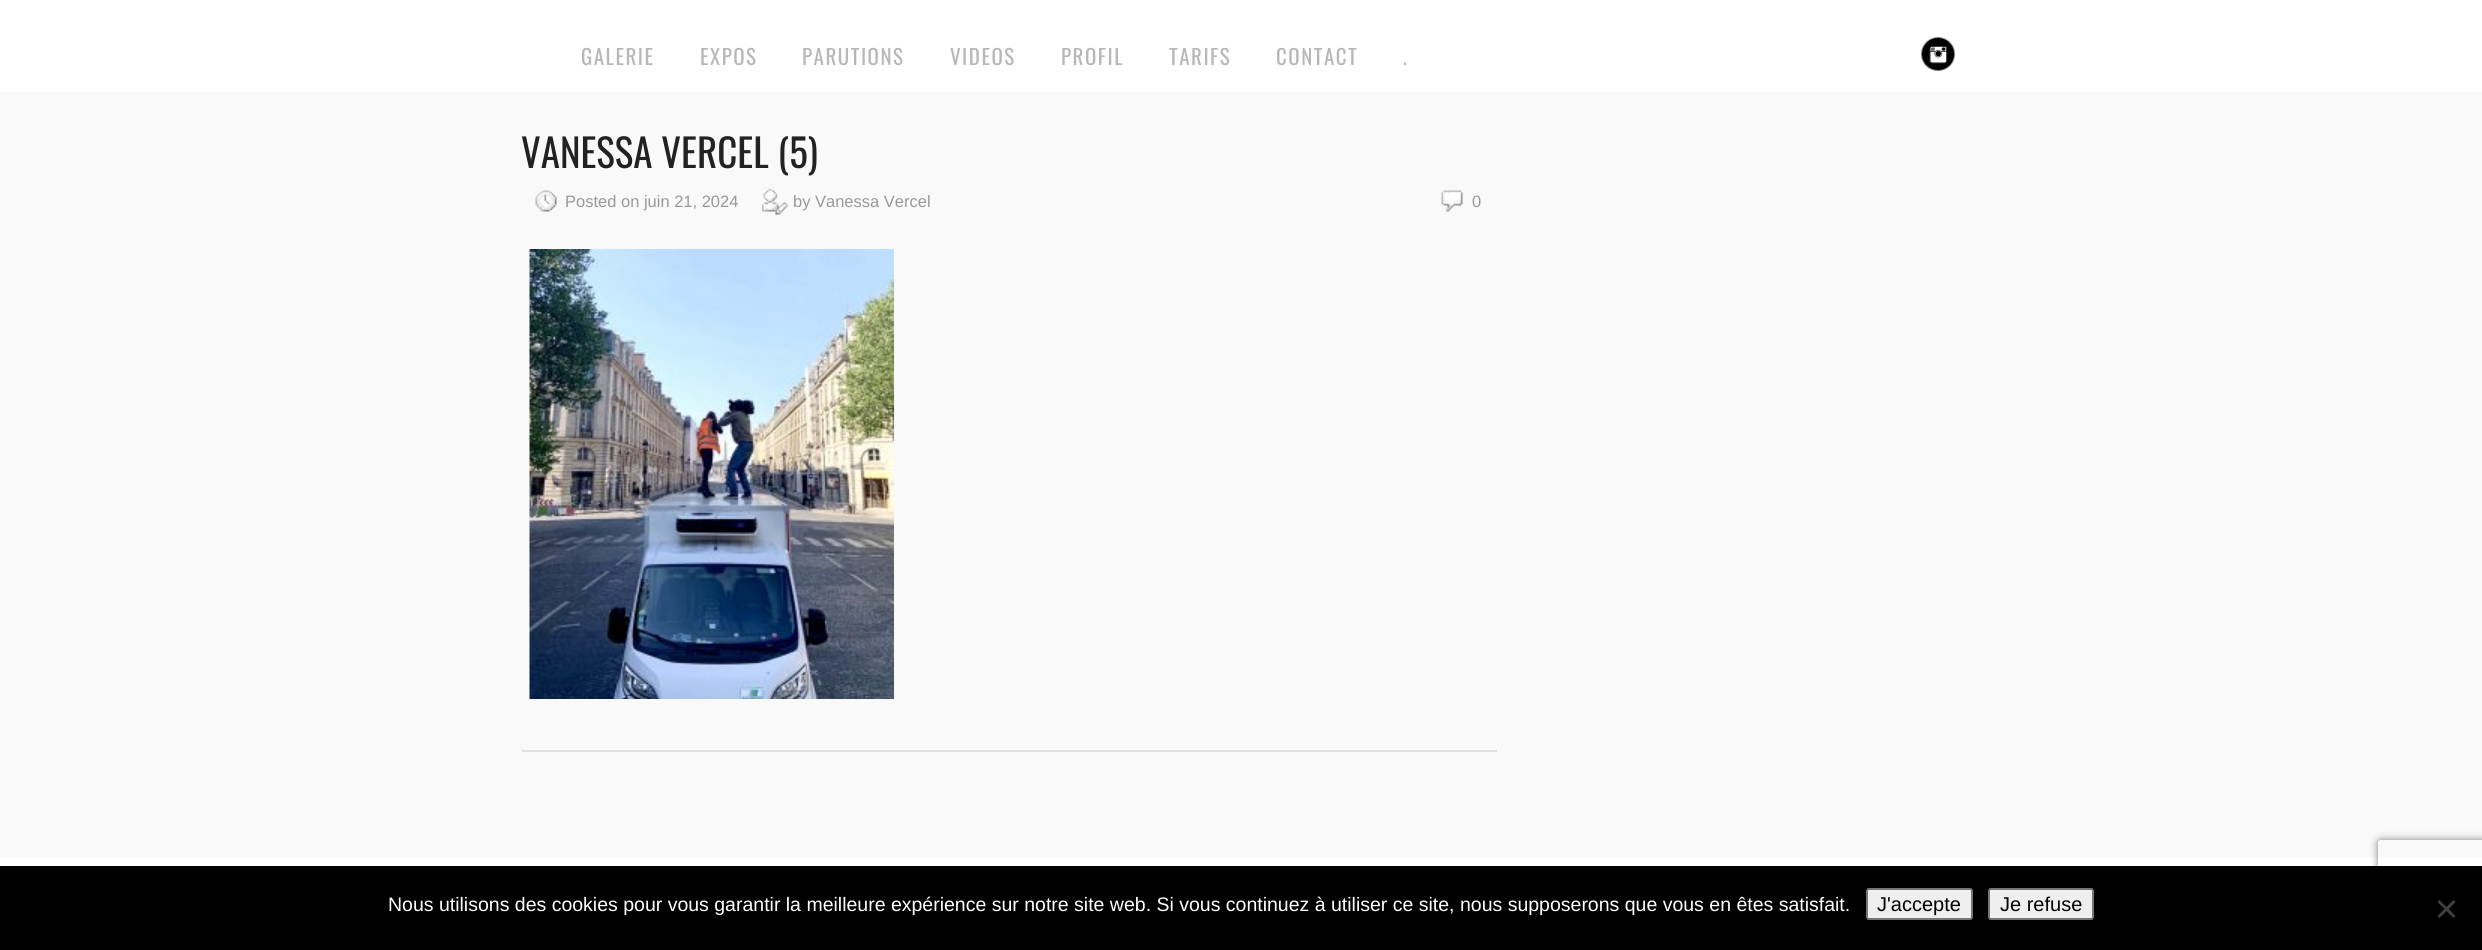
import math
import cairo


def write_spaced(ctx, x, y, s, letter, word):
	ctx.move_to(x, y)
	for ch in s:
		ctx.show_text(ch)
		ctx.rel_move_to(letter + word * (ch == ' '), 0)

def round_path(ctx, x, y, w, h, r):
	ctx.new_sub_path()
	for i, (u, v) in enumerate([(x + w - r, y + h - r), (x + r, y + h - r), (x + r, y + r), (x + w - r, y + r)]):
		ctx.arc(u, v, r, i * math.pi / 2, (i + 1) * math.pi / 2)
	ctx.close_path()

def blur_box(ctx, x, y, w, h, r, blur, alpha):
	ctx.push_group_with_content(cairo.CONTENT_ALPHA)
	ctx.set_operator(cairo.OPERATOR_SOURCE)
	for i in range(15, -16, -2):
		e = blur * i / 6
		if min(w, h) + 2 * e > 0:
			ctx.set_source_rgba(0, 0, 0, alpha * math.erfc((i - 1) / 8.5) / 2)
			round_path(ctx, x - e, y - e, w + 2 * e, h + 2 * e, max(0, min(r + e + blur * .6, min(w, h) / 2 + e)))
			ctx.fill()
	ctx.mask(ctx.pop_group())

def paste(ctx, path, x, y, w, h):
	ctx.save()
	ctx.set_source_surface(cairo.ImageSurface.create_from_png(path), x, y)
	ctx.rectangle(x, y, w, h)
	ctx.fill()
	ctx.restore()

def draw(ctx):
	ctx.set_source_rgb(1, 1, 1)
	ctx.paint()
	ctx.select_font_face('Oswald')
	ctx.set_font_size(21)
	ctx.set_source_rgb(0.718, 0.718, 0.718)
	for x, y, s in [
		(581, 65, 'GALERIE'),
		(700, 65, 'EXPOS'),
		(802, 65, 'PARUTIONS'),
		(950, 65, 'VIDEOS'),
		(1061, 65, 'PROFIL'),
		(1169, 65, 'TARIFS'),
		(1276, 65, 'CONTACT'),
		(1403, 65, '.'),
	]:
		write_spaced(ctx, x, y, s, 1.5, 0)
	paste(ctx, 'media/1.png', 1921, 37, 34, 34)
	ctx.set_source_rgb(0.976, 0.976, 0.976)
	ctx.rectangle(0, 92, 2482, 765)
	ctx.fill()
	ctx.set_source_rgb(0.878, 0.878, 0.878)
	ctx.rectangle(522, 750, 975, 2)
	ctx.fill()
	ctx.set_font_size(39)
	ctx.set_source_rgb(0.133, 0.133, 0.133)
	ctx.move_to(521, 168)
	ctx.show_text('VANESSA VERCEL (5)')
	paste(ctx, 'media/2.png', 535, 190, 22, 22)
	ctx.select_font_face('Liberation Sans')
	ctx.set_font_size(16.5)
	ctx.set_source_rgb(0.6, 0.6, 0.6)
	ctx.move_to(565, 207)
	ctx.show_text('Posted on juin 21, 2024')
	paste(ctx, 'media/3.png', 761, 188, 27, 27)
	ctx.move_to(793, 207)
	ctx.show_text('by Vanessa Vercel')
	paste(ctx, 'media/4.png', 1441, 190, 22, 22)
	ctx.move_to(1472, 207)
	ctx.show_text('0')
	paste(ctx, 'media/5.png', 529, 249, 365, 450)
	ctx.save()
	ctx.set_fill_rule(cairo.FILL_RULE_EVEN_ODD)
	ctx.new_path()
	ctx.move_to(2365, 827)
	ctx.line_to(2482, 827)
	ctx.line_to(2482, 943)
	ctx.line_to(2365, 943)
	ctx.close_path()
	ctx.move_to(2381, 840)
	ctx.line_to(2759, 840)
	ctx.curve_to(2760.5, 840, 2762, 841.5, 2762, 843)
	ctx.line_to(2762, 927)
	ctx.curve_to(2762, 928.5, 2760.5, 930, 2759, 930)
	ctx.line_to(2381, 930)
	ctx.curve_to(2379.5, 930, 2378, 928.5, 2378, 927)
	ctx.line_to(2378, 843)
	ctx.curve_to(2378, 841.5, 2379.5, 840, 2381, 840)
	ctx.close_path()
	ctx.clip()
	ctx.set_source_rgb(0.502, 0.502, 0.502)
	blur_box(ctx, 2378, 840, 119, 90, 3, 4, 1)
	ctx.restore()
	ctx.set_source_rgb(0, 0, 0)
	ctx.rectangle(0, 866, 2482, 84)
	ctx.fill()
	ctx.set_font_size(19.5)
	ctx.set_source_rgb(1, 1, 1)
	ctx.move_to(388, 911)
	ctx.show_text('Nous utilisons des cookies pour vous garantir la meilleure expérience sur notre site web. Si vous continuez à utiliser ce site, nous supposerons que vous en êtes satisfait.')
	ctx.set_source_rgb(0.937, 0.937, 0.937)
	round_path(ctx, 1867, 889, 105, 30, 2)
	ctx.fill_preserve()
	ctx.set_source_rgb(0.463, 0.463, 0.463)
	ctx.stroke()
	ctx.set_font_size(20)
	ctx.set_source_rgb(0, 0, 0)
	ctx.move_to(1877, 911)
	ctx.show_text('J\'accepte')
	ctx.set_source_rgb(0.937, 0.937, 0.937)
	round_path(ctx, 1989, 889, 104, 30, 2)
	ctx.fill_preserve()
	ctx.set_source_rgb(0.463, 0.463, 0.463)
	ctx.stroke()
	ctx.set_source_rgb(0, 0, 0)
	ctx.move_to(2000, 911)
	ctx.show_text('Je refuse')
	ctx.set_source_rgb(0.251, 0.251, 0.251)
	ctx.new_path()
	ctx.move_to(2453.5, 900)
	ctx.line_to(2455.5, 902)
	ctx.line_to(2439.5, 918)
	ctx.line_to(2437.5, 916)
	ctx.close_path()
	ctx.fill()
	ctx.new_path()
	ctx.move_to(2437.5, 902)
	ctx.line_to(2439.5, 900)
	ctx.line_to(2455.5, 916)
	ctx.line_to(2453.5, 918)
	ctx.close_path()
	ctx.fill()


surface = cairo.ImageSurface(cairo.FORMAT_RGB24, 2482, 950)
ctx = cairo.Context(surface)
options = cairo.FontOptions()
options.set_hint_metrics(cairo.HINT_METRICS_OFF)
options.set_hint_style(cairo.HINT_STYLE_NONE)
ctx.set_font_options(options)
ctx.set_miter_limit(4)
draw(ctx)
surface.write_to_png('image.png')
